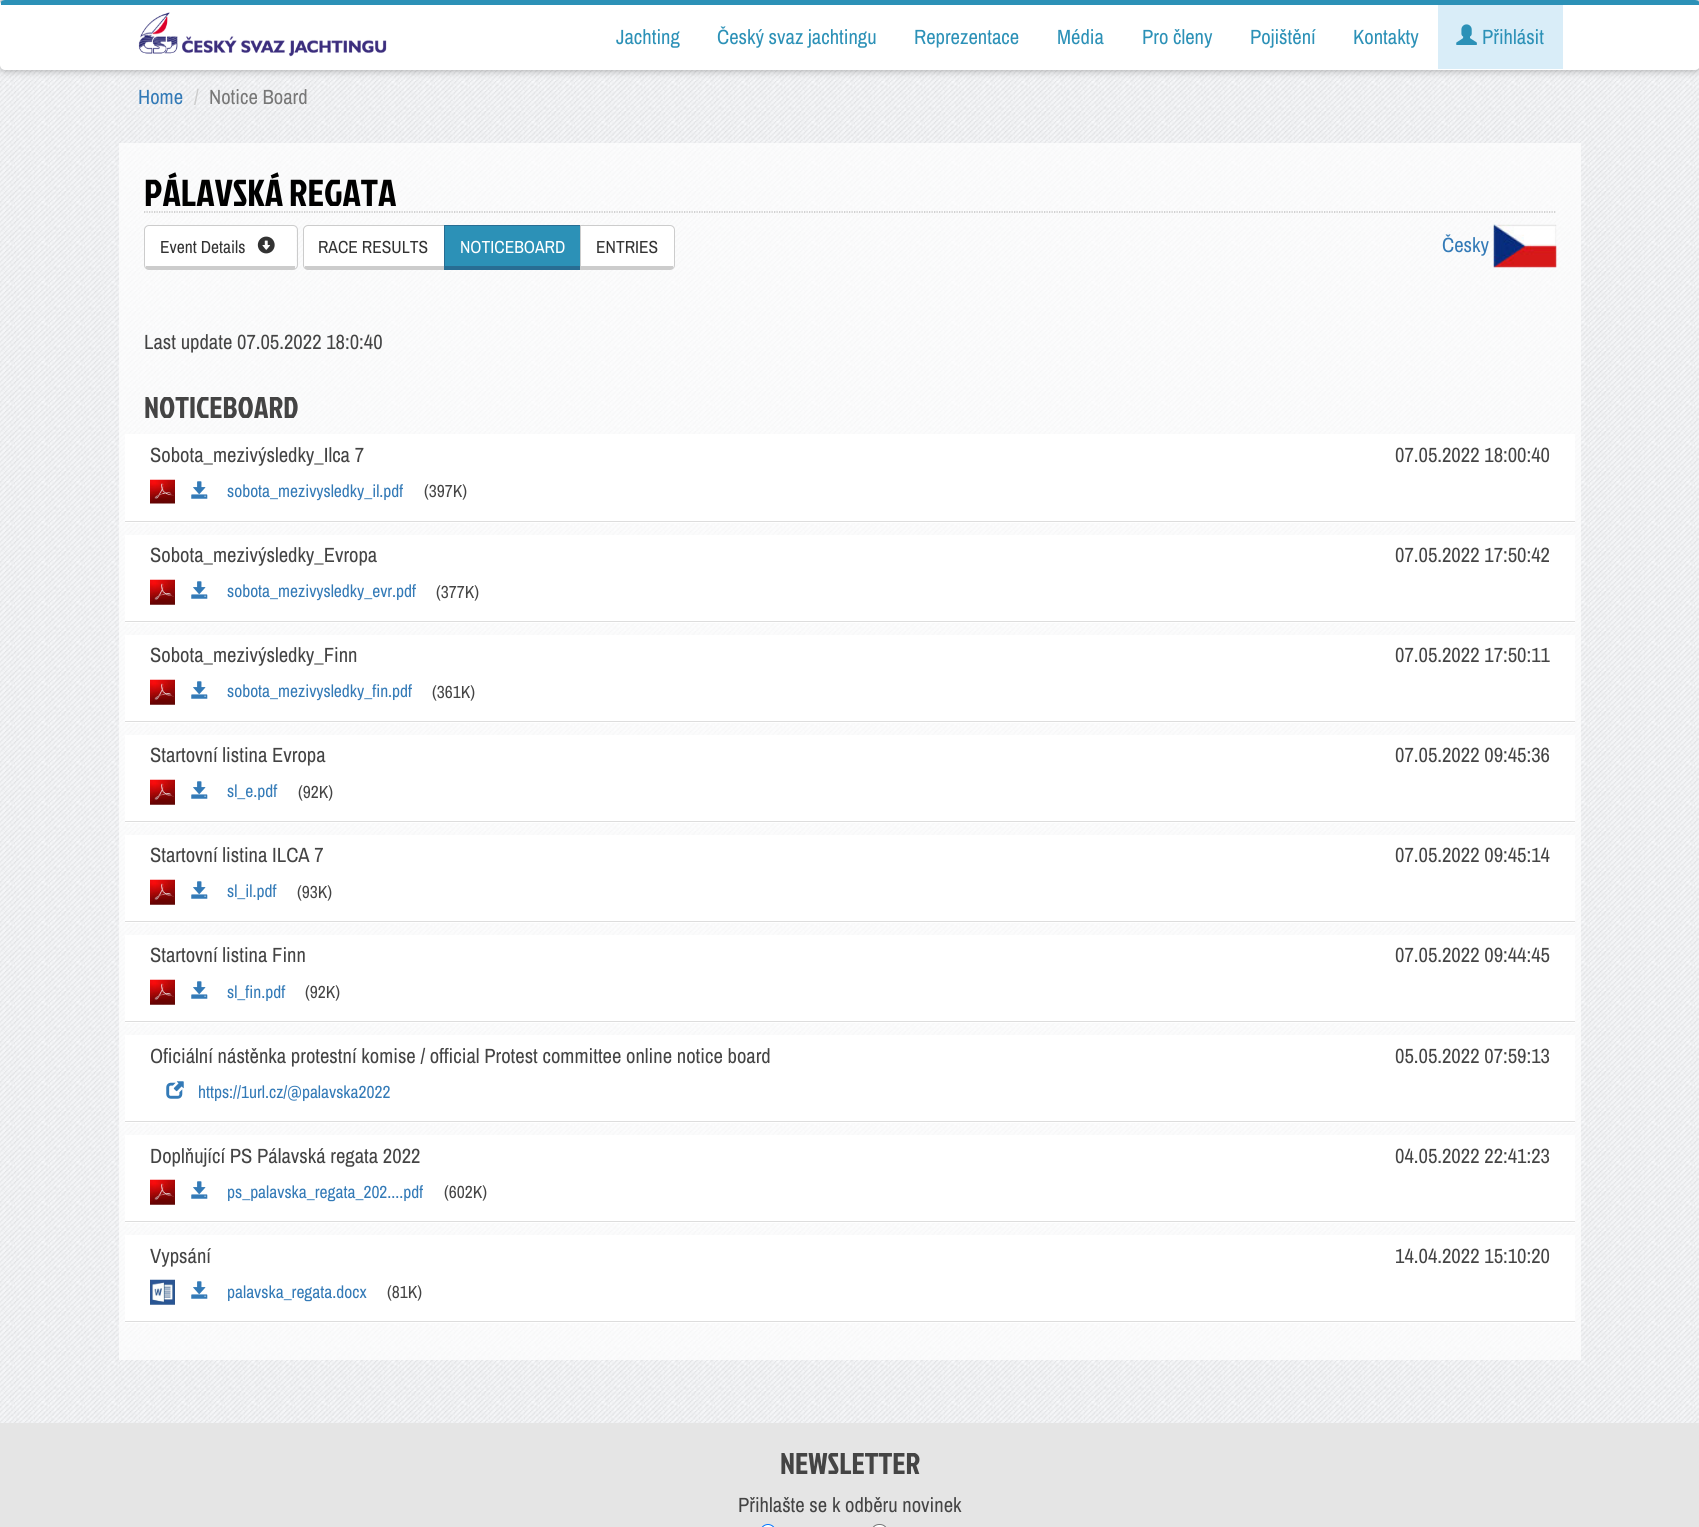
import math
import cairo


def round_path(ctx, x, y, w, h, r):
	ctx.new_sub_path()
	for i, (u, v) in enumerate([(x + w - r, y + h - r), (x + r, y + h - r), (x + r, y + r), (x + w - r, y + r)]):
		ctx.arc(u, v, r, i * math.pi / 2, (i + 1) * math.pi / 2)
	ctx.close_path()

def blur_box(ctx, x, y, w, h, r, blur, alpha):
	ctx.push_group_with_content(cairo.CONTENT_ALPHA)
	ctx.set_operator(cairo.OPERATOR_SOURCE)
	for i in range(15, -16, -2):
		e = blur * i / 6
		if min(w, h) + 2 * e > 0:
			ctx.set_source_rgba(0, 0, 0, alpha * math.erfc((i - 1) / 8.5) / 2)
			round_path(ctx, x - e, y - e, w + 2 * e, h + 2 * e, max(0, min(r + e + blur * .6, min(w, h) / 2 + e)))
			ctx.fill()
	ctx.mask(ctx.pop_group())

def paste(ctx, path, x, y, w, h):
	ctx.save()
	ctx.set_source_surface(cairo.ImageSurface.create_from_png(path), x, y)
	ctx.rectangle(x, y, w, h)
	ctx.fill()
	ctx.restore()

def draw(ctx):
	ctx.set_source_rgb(1, 1, 1)
	ctx.paint()
	paste(ctx, 'media/1.png', 0, 0, 1699, 1423)
	ctx.set_source_rgb(0, 0, 0)
	blur_box(ctx, 0, 0, 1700, 70, 5, 4, 0.35)
	ctx.set_source_rgb(1, 1, 1)
	round_path(ctx, 0, 0, 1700, 70, 5)
	ctx.fill()
	ctx.set_source_rgb(0.173, 0.569, 0.718)
	ctx.new_path()
	ctx.move_to(5, 0)
	ctx.curve_to(3, 0, 1, 1, 1, 2)
	ctx.line_to(1, 5)
	ctx.line_to(1699, 5)
	ctx.line_to(1699, 2)
	ctx.curve_to(1699, 1, 1697, 0, 1695, 0)
	ctx.close_path()
	ctx.fill()
	paste(ctx, 'media/2.png', 138, 12, 249, 45)
	ctx.select_font_face('Archivo Narrow')
	ctx.set_font_size(20.6)
	for x, y, s in [
		(616, 44, 'Jachting'),
		(717, 44, 'Český svaz jachtingu'),
		(914, 44, 'Reprezentace'),
		(1057, 44, 'Média'),
		(1142, 44, 'Pro členy'),
		(1250, 44, 'Pojištění'),
		(1353, 44, 'Kontakty'),
	]:
		ctx.move_to(x, y)
		ctx.show_text(s)
	ctx.set_source_rgb(0.851, 0.929, 0.969)
	ctx.rectangle(1438, 5, 125, 64)
	ctx.fill()
	paste(ctx, 'media/3.png', 1456, 24, 21, 21)
	ctx.set_source_rgb(0.173, 0.569, 0.718)
	ctx.move_to(1482, 44)
	ctx.show_text('Přihlásit')
	ctx.set_source_rgb(0.2, 0.478, 0.718)
	ctx.move_to(138, 104)
	ctx.show_text('Home')
	ctx.set_source_rgb(0.8, 0.8, 0.8)
	ctx.move_to(194, 104)
	ctx.show_text('/')
	ctx.set_source_rgb(0.467, 0.467, 0.467)
	ctx.move_to(209, 104)
	ctx.show_text('Notice Board')
	ctx.set_source_rgba(1, 1, 1, 0.7)
	ctx.rectangle(119, 143, 1462, 1217)
	ctx.fill()
	ctx.new_path()
	ctx.move_to(144, 212)
	ctx.line_to(1556, 212)
	ctx.set_source_rgb(0.722, 0.722, 0.722)
	ctx.set_line_width(1.2)
	ctx.set_dash([1.25, 1.25])
	ctx.stroke()
	ctx.select_font_face('Jockey One')
	ctx.set_font_size(37.5)
	ctx.set_source_rgb(0, 0, 0)
	ctx.move_to(144, 206)
	ctx.show_text('PÁLAVSKÁ REGATA')
	ctx.set_source_rgb(1, 1, 1)
	ctx.new_path()
	ctx.move_to(149, 226)
	ctx.line_to(292, 226)
	ctx.curve_to(295, 226, 296, 228, 296, 230)
	ctx.line_to(296, 265)
	ctx.curve_to(296, 266, 295, 266, 292, 266)
	ctx.line_to(149, 266)
	ctx.curve_to(147, 266, 145, 266, 145, 265)
	ctx.line_to(145, 230)
	ctx.curve_to(145, 228, 147, 226, 149, 226)
	ctx.close_path()
	ctx.fill()
	round_path(ctx, 144.5, 225.5, 153, 44, 4.5)
	ctx.set_source_rgb(0.8, 0.8, 0.8)
	ctx.set_line_width(1)
	ctx.set_dash([])
	ctx.stroke()
	ctx.rectangle(146, 266, 149, 3)
	ctx.fill()
	ctx.select_font_face('Archivo Narrow')
	ctx.set_font_size(17.5)
	ctx.set_source_rgb(0.2, 0.2, 0.2)
	ctx.move_to(160, 253)
	ctx.show_text('Event Details')
	paste(ctx, 'media/4.png', 257, 236, 18, 18)
	ctx.set_source_rgb(1, 1, 1)
	ctx.new_path()
	ctx.move_to(308, 226)
	ctx.line_to(444, 226)
	ctx.line_to(444, 266)
	ctx.line_to(308, 266)
	ctx.curve_to(305, 266, 304, 266, 304, 265)
	ctx.line_to(304, 230)
	ctx.curve_to(304, 228, 305, 226, 308, 226)
	ctx.close_path()
	ctx.fill()
	ctx.new_path()
	ctx.move_to(308, 225.5)
	ctx.line_to(444.5, 225.5)
	ctx.line_to(444.5, 269.5)
	ctx.line_to(308, 269.5)
	ctx.curve_to(305.5, 269.5, 303.5, 267.5, 303.5, 265)
	ctx.line_to(303.5, 230)
	ctx.curve_to(303.5, 227.5, 305.5, 225.5, 308, 225.5)
	ctx.close_path()
	ctx.set_source_rgb(0.8, 0.8, 0.8)
	ctx.stroke()
	ctx.rectangle(305, 266, 140, 3)
	ctx.fill()
	ctx.set_source_rgb(0.2, 0.2, 0.2)
	ctx.move_to(318, 253)
	ctx.show_text('RACE RESULTS')
	ctx.set_source_rgb(0.173, 0.569, 0.718)
	ctx.rectangle(445, 226, 135, 40)
	ctx.fill()
	ctx.set_source_rgb(0.157, 0.427, 0.576)
	ctx.rectangle(444, 225, 137, 1)
	ctx.rectangle(444, 266, 137, 4)
	ctx.rectangle(444, 225, 1, 45)
	ctx.fill()
	ctx.set_source_rgb(1, 1, 1)
	ctx.move_to(460, 253)
	ctx.show_text('NOTICEBOARD')
	ctx.new_path()
	ctx.move_to(581, 226)
	ctx.line_to(670, 226)
	ctx.curve_to(672, 226, 674, 228, 674, 230)
	ctx.line_to(674, 265)
	ctx.curve_to(674, 266, 672, 266, 670, 266)
	ctx.line_to(581, 266)
	ctx.close_path()
	ctx.fill()
	ctx.new_path()
	ctx.move_to(580.5, 225.5)
	ctx.line_to(670, 225.5)
	ctx.curve_to(672.5, 225.5, 674.5, 227.5, 674.5, 230)
	ctx.line_to(674.5, 265)
	ctx.curve_to(674.5, 267.5, 672.5, 269.5, 670, 269.5)
	ctx.line_to(580.5, 269.5)
	ctx.close_path()
	ctx.set_source_rgb(0.8, 0.8, 0.8)
	ctx.stroke()
	ctx.rectangle(580, 266, 93, 3)
	ctx.fill()
	ctx.set_source_rgb(0.2, 0.2, 0.2)
	ctx.move_to(596, 253)
	ctx.show_text('ENTRIES')
	ctx.set_font_size(20.6)
	ctx.set_source_rgb(0.2, 0.478, 0.718)
	ctx.move_to(1442, 252)
	ctx.show_text('Česky')
	paste(ctx, 'media/5.png', 1493, 224, 64, 44)
	ctx.set_source_rgb(0.267, 0.267, 0.267)
	ctx.move_to(144, 349)
	ctx.show_text('Last update 07.05.2022 18:0:40')
	ctx.select_font_face('Jockey One')
	ctx.set_font_size(30)
	ctx.move_to(144, 418)
	ctx.show_text('NOTICEBOARD')
	ctx.set_source_rgb(1, 1, 1)
	ctx.rectangle(125, 434, 1450, 89)
	ctx.fill()
	ctx.set_source_rgb(0.867, 0.867, 0.867)
	ctx.rectangle(125, 521, 1450, 1)
	ctx.fill()
	ctx.select_font_face('Archivo Narrow')
	ctx.set_font_size(20.6)
	ctx.set_source_rgb(0.267, 0.267, 0.267)
	ctx.move_to(150, 462)
	ctx.show_text('Sobota_mezivýsledky_Ilca 7')
	paste(ctx, 'media/6.png', 150, 479, 25, 25)
	paste(ctx, 'media/7.png', 191, 481, 17, 18)
	ctx.set_font_size(17.5)
	ctx.set_source_rgb(0.2, 0.478, 0.718)
	ctx.move_to(227, 497)
	ctx.show_text('sobota_mezivysledky_il.pdf')
	ctx.set_source_rgb(0.267, 0.267, 0.267)
	ctx.move_to(424, 497)
	ctx.show_text('(397K)')
	ctx.set_font_size(20.6)
	ctx.move_to(1395, 462)
	ctx.show_text('07.05.2022 18:00:40')
	ctx.set_source_rgb(1, 1, 1)
	ctx.rectangle(125, 535, 1450, 88)
	ctx.fill()
	ctx.set_source_rgb(0.867, 0.867, 0.867)
	ctx.rectangle(125, 621, 1450, 1)
	ctx.fill()
	ctx.set_source_rgb(0.267, 0.267, 0.267)
	ctx.move_to(150, 562)
	ctx.show_text('Sobota_mezivýsledky_Evropa')
	paste(ctx, 'media/8.png', 150, 579, 25, 26)
	paste(ctx, 'media/7.png', 191, 581, 17, 18)
	ctx.set_font_size(17.5)
	ctx.set_source_rgb(0.2, 0.478, 0.718)
	ctx.move_to(227, 597)
	ctx.show_text('sobota_mezivysledky_evr.pdf')
	ctx.set_source_rgb(0.267, 0.267, 0.267)
	ctx.move_to(436, 598)
	ctx.show_text('(377K)')
	ctx.set_font_size(20.6)
	ctx.move_to(1395, 562)
	ctx.show_text('07.05.2022 17:50:42')
	ctx.set_source_rgb(1, 1, 1)
	ctx.rectangle(125, 635, 1450, 88)
	ctx.fill()
	ctx.set_source_rgb(0.867, 0.867, 0.867)
	ctx.rectangle(125, 721, 1450, 1)
	ctx.fill()
	ctx.set_source_rgb(0.267, 0.267, 0.267)
	ctx.move_to(150, 662)
	ctx.show_text('Sobota_mezivýsledky_Finn')
	paste(ctx, 'media/8.png', 150, 679, 25, 26)
	paste(ctx, 'media/7.png', 191, 681, 17, 18)
	ctx.set_font_size(17.5)
	ctx.set_source_rgb(0.2, 0.478, 0.718)
	ctx.move_to(227, 697)
	ctx.show_text('sobota_mezivysledky_fin.pdf')
	ctx.set_source_rgb(0.267, 0.267, 0.267)
	ctx.move_to(432, 698)
	ctx.show_text('(361K)')
	ctx.set_font_size(20.6)
	ctx.move_to(1395, 662)
	ctx.show_text('07.05.2022 17:50:11')
	ctx.set_source_rgb(1, 1, 1)
	ctx.rectangle(125, 735, 1450, 88)
	ctx.fill()
	ctx.set_source_rgb(0.867, 0.867, 0.867)
	ctx.rectangle(125, 821, 1450, 1)
	ctx.fill()
	ctx.set_source_rgb(0.267, 0.267, 0.267)
	ctx.move_to(150, 762)
	ctx.show_text('Startovní listina Evropa')
	paste(ctx, 'media/8.png', 150, 779, 25, 26)
	paste(ctx, 'media/7.png', 191, 781, 17, 18)
	ctx.set_font_size(17.5)
	ctx.set_source_rgb(0.2, 0.478, 0.718)
	ctx.move_to(227, 797)
	ctx.show_text('sl_e.pdf')
	ctx.set_source_rgb(0.267, 0.267, 0.267)
	ctx.move_to(298, 798)
	ctx.show_text('(92K)')
	ctx.set_font_size(20.6)
	ctx.move_to(1395, 762)
	ctx.show_text('07.05.2022 09:45:36')
	ctx.set_source_rgb(1, 1, 1)
	ctx.rectangle(125, 835, 1450, 88)
	ctx.fill()
	ctx.set_source_rgb(0.867, 0.867, 0.867)
	ctx.rectangle(125, 921, 1450, 1)
	ctx.fill()
	ctx.set_source_rgb(0.267, 0.267, 0.267)
	ctx.move_to(150, 862)
	ctx.show_text('Startovní listina ILCA 7')
	paste(ctx, 'media/8.png', 150, 879, 25, 26)
	paste(ctx, 'media/7.png', 191, 881, 17, 18)
	ctx.set_font_size(17.5)
	ctx.set_source_rgb(0.2, 0.478, 0.718)
	ctx.move_to(227, 897)
	ctx.show_text('sl_il.pdf')
	ctx.set_source_rgb(0.267, 0.267, 0.267)
	ctx.move_to(297, 898)
	ctx.show_text('(93K)')
	ctx.set_font_size(20.6)
	ctx.move_to(1395, 862)
	ctx.show_text('07.05.2022 09:45:14')
	ctx.set_source_rgb(1, 1, 1)
	ctx.rectangle(125, 935, 1450, 88)
	ctx.fill()
	ctx.set_source_rgb(0.867, 0.867, 0.867)
	ctx.rectangle(125, 1021, 1450, 1)
	ctx.fill()
	ctx.set_source_rgb(0.267, 0.267, 0.267)
	ctx.move_to(150, 962)
	ctx.show_text('Startovní listina Finn')
	paste(ctx, 'media/8.png', 150, 979, 25, 26)
	paste(ctx, 'media/7.png', 191, 981, 17, 18)
	ctx.set_font_size(17.5)
	ctx.set_source_rgb(0.2, 0.478, 0.718)
	ctx.move_to(227, 998)
	ctx.show_text('sl_fin.pdf')
	ctx.set_source_rgb(0.267, 0.267, 0.267)
	ctx.move_to(305, 998)
	ctx.show_text('(92K)')
	ctx.set_font_size(20.6)
	ctx.move_to(1395, 962)
	ctx.show_text('07.05.2022 09:44:45')
	ctx.set_source_rgb(1, 1, 1)
	ctx.rectangle(125, 1035, 1450, 88)
	ctx.fill()
	ctx.set_source_rgb(0.867, 0.867, 0.867)
	ctx.rectangle(125, 1121, 1450, 1)
	ctx.fill()
	ctx.set_source_rgb(0.267, 0.267, 0.267)
	ctx.move_to(150, 1063)
	ctx.show_text('Oficiální nástěnka protestní komise / official Protest committee online notice board')
	paste(ctx, 'media/9.png', 166, 1081, 18, 18)
	ctx.set_font_size(17.5)
	ctx.set_source_rgb(0.2, 0.478, 0.718)
	ctx.move_to(198, 1098)
	ctx.show_text('https://1url.cz/@palavska2022')
	ctx.set_font_size(20.6)
	ctx.set_source_rgb(0.267, 0.267, 0.267)
	ctx.move_to(1395, 1063)
	ctx.show_text('05.05.2022 07:59:13')
	ctx.set_source_rgb(1, 1, 1)
	ctx.rectangle(125, 1135, 1450, 88)
	ctx.fill()
	ctx.set_source_rgb(0.867, 0.867, 0.867)
	ctx.rectangle(125, 1221, 1450, 1)
	ctx.fill()
	ctx.set_source_rgb(0.267, 0.267, 0.267)
	ctx.move_to(150, 1163)
	ctx.show_text('Doplňující PS Pálavská regata 2022')
	paste(ctx, 'media/8.png', 150, 1179, 25, 26)
	paste(ctx, 'media/7.png', 191, 1181, 17, 18)
	ctx.set_font_size(17.5)
	ctx.set_source_rgb(0.2, 0.478, 0.718)
	ctx.move_to(227, 1198)
	ctx.show_text('ps_palavska_regata_202....pdf')
	ctx.set_source_rgb(0.267, 0.267, 0.267)
	ctx.move_to(444, 1198)
	ctx.show_text('(602K)')
	ctx.set_font_size(20.6)
	ctx.move_to(1395, 1163)
	ctx.show_text('04.05.2022 22:41:23')
	ctx.set_source_rgb(1, 1, 1)
	ctx.rectangle(125, 1235, 1450, 88)
	ctx.fill()
	ctx.set_source_rgb(0.867, 0.867, 0.867)
	ctx.rectangle(125, 1321, 1450, 1)
	ctx.fill()
	ctx.set_source_rgb(0.267, 0.267, 0.267)
	ctx.move_to(150, 1263)
	ctx.show_text('Vypsání')
	paste(ctx, 'media/10.png', 150, 1279, 25, 26)
	paste(ctx, 'media/7.png', 191, 1281, 17, 18)
	ctx.set_font_size(17.5)
	ctx.set_source_rgb(0.2, 0.478, 0.718)
	ctx.move_to(227, 1298)
	ctx.show_text('palavska_regata.docx')
	ctx.set_source_rgb(0.267, 0.267, 0.267)
	ctx.move_to(387, 1298)
	ctx.show_text('(81K)')
	ctx.set_font_size(20.6)
	ctx.move_to(1395, 1263)
	ctx.show_text('14.04.2022 15:10:20')
	ctx.set_source_rgb(0.898, 0.898, 0.898)
	ctx.rectangle(0, 1423, 1699, 104)
	ctx.fill()
	ctx.select_font_face('Jockey One')
	ctx.set_font_size(30)
	ctx.set_source_rgb(0.267, 0.267, 0.267)
	ctx.move_to(780, 1474)
	ctx.show_text('NEWSLETTER')
	ctx.select_font_face('Archivo Narrow')
	ctx.set_font_size(20.6)
	ctx.move_to(738, 1512)
	ctx.show_text('Přihlašte se k odběru novinek')
	ctx.set_source_rgb(1, 1, 1)
	round_path(ctx, 760.5, 1524.5, 15, 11, 7.5)
	ctx.fill_preserve()
	ctx.set_source_rgb(0, 0.459, 1)
	ctx.stroke()
	ctx.set_source_rgb(1, 1, 1)
	round_path(ctx, 871.5, 1524.5, 16, 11, 7.5)
	ctx.fill_preserve()
	ctx.set_source_rgb(0.463, 0.463, 0.463)
	ctx.stroke()


surface = cairo.ImageSurface(cairo.FORMAT_RGB24, 1699, 1527)
ctx = cairo.Context(surface)
options = cairo.FontOptions()
options.set_hint_metrics(cairo.HINT_METRICS_OFF)
options.set_hint_style(cairo.HINT_STYLE_NONE)
ctx.set_font_options(options)
ctx.set_miter_limit(4)
draw(ctx)
surface.write_to_png('image.png')
